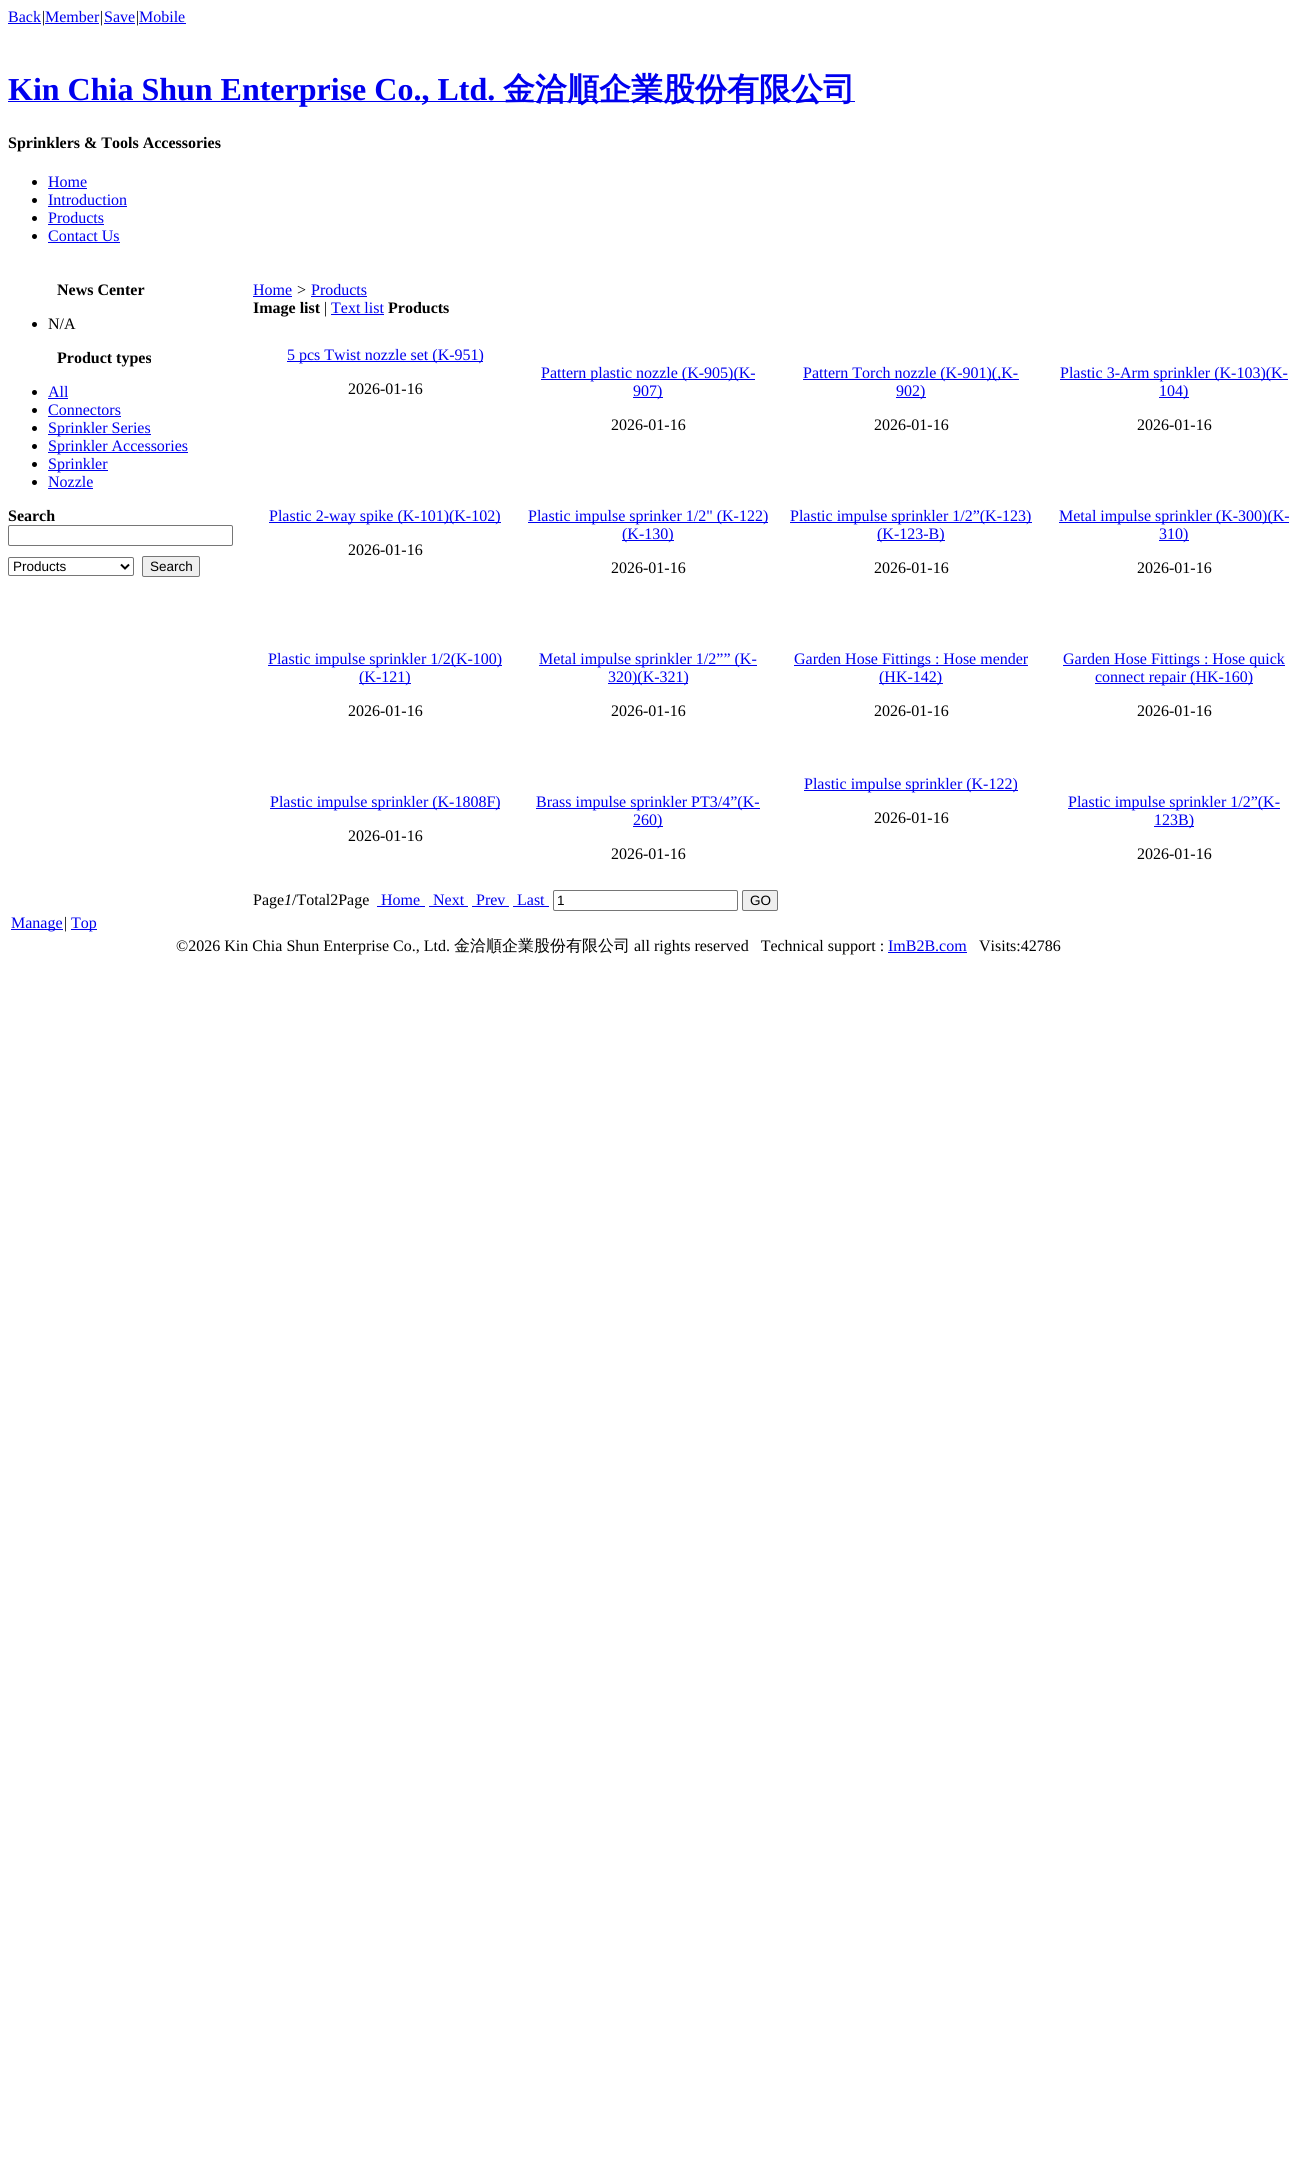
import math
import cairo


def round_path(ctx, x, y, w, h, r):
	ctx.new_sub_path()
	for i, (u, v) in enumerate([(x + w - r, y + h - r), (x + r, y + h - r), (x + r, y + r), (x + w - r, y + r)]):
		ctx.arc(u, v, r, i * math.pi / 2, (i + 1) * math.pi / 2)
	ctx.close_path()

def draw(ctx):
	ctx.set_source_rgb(1, 1, 1)
	ctx.paint()
	ctx.select_font_face('Liberation Serif')
	ctx.set_font_size(16)
	ctx.set_source_rgb(0, 0, 0.933)
	ctx.move_to(8, 22)
	ctx.show_text('Back')
	ctx.select_font_face('Liberation Serif', cairo.FONT_SLANT_ITALIC)
	ctx.set_source_rgb(0, 0, 0)
	ctx.move_to(41, 22)
	ctx.show_text('|')
	ctx.set_source_rgb(0, 0, 0.933)
	ctx.rectangle(8, 23, 33, 1)
	ctx.fill()
	ctx.rectangle(45, 23, 54, 1)
	ctx.fill()
	ctx.select_font_face('Liberation Serif')
	ctx.move_to(45, 22)
	ctx.show_text('Member')
	ctx.select_font_face('Liberation Serif', cairo.FONT_SLANT_ITALIC)
	ctx.set_source_rgb(0, 0, 0)
	ctx.move_to(99, 22)
	ctx.show_text('|')
	ctx.select_font_face('Liberation Serif')
	ctx.set_source_rgb(0, 0, 0.933)
	ctx.move_to(104, 22)
	ctx.show_text('Save')
	ctx.rectangle(104, 23, 31, 1)
	ctx.fill()
	ctx.select_font_face('Liberation Serif', cairo.FONT_SLANT_ITALIC)
	ctx.set_source_rgb(0, 0, 0)
	ctx.move_to(135, 22)
	ctx.show_text('|')
	ctx.select_font_face('Liberation Serif')
	ctx.set_source_rgb(0, 0, 0.933)
	ctx.move_to(139, 22)
	ctx.show_text('Mobile')
	ctx.rectangle(139, 23, 47, 1)
	ctx.fill()
	ctx.rectangle(8, 101, 847, 1)
	ctx.fill()
	ctx.select_font_face('Liberation Serif', cairo.FONT_SLANT_NORMAL, cairo.FONT_WEIGHT_BOLD)
	ctx.set_font_size(32)
	ctx.move_to(8, 100)
	ctx.show_text('Kin Chia Shun Enterprise Co., Ltd.')
	ctx.select_font_face('WenQuanYi Zen Hei', cairo.FONT_SLANT_NORMAL, cairo.FONT_WEIGHT_BOLD)
	ctx.move_to(503, 100)
	ctx.show_text('金洽順企業股份有限公司')
	ctx.select_font_face('Liberation Serif', cairo.FONT_SLANT_NORMAL, cairo.FONT_WEIGHT_BOLD)
	ctx.set_font_size(16)
	ctx.set_source_rgb(0, 0, 0)
	ctx.move_to(8, 148)
	ctx.show_text('Sprinklers & Tools Accessories')
	ctx.new_path()
	ctx.arc(34.5, 182.5, 2.5, 0, 2 * math.pi)
	ctx.fill()
	ctx.select_font_face('Liberation Serif')
	ctx.set_source_rgb(0, 0, 0.933)
	ctx.move_to(48, 187)
	ctx.show_text('Home')
	ctx.rectangle(48, 188, 39, 1)
	ctx.fill()
	ctx.set_source_rgb(0, 0, 0)
	ctx.arc(34.5, 200.5, 2.5, 0, 2 * math.pi)
	ctx.fill()
	ctx.set_source_rgb(0, 0, 0.933)
	ctx.move_to(48, 205)
	ctx.show_text('Introduction')
	ctx.rectangle(48, 206, 79, 1)
	ctx.fill()
	ctx.set_source_rgb(0, 0, 0)
	ctx.arc(34.5, 218.5, 2.5, 0, 2 * math.pi)
	ctx.fill()
	ctx.set_source_rgb(0, 0, 0.933)
	ctx.move_to(48, 223)
	ctx.show_text('Products')
	ctx.rectangle(48, 224, 56, 1)
	ctx.fill()
	ctx.set_source_rgb(0, 0, 0)
	ctx.arc(34.5, 236.5, 2.5, 0, 2 * math.pi)
	ctx.fill()
	ctx.set_source_rgb(0, 0, 0.933)
	ctx.move_to(48, 241)
	ctx.show_text('Contact Us')
	ctx.rectangle(48, 242, 72, 1)
	ctx.fill()
	ctx.select_font_face('Liberation Serif', cairo.FONT_SLANT_NORMAL, cairo.FONT_WEIGHT_BOLD)
	ctx.set_source_rgb(0, 0, 0)
	ctx.move_to(57, 295)
	ctx.show_text('News Center')
	ctx.new_path()
	ctx.arc(34.5, 324.5, 2.5, 0, 2 * math.pi)
	ctx.fill()
	ctx.select_font_face('Liberation Serif')
	ctx.move_to(48, 329)
	ctx.show_text('N/A')
	ctx.select_font_face('Liberation Serif', cairo.FONT_SLANT_NORMAL, cairo.FONT_WEIGHT_BOLD)
	ctx.move_to(57, 363)
	ctx.show_text('Product types')
	ctx.new_path()
	ctx.arc(34.5, 392.5, 2.5, 0, 2 * math.pi)
	ctx.fill()
	ctx.select_font_face('Liberation Serif')
	ctx.set_source_rgb(0, 0, 0.933)
	ctx.move_to(48, 397)
	ctx.show_text('All')
	ctx.rectangle(48, 398, 20, 1)
	ctx.fill()
	ctx.set_source_rgb(0, 0, 0)
	ctx.arc(34.5, 410.5, 2.5, 0, 2 * math.pi)
	ctx.fill()
	ctx.set_source_rgb(0, 0, 0.933)
	ctx.move_to(48, 415)
	ctx.show_text('Connectors')
	ctx.rectangle(48, 416, 73, 1)
	ctx.fill()
	ctx.set_source_rgb(0, 0, 0)
	ctx.arc(34.5, 428.5, 2.5, 0, 2 * math.pi)
	ctx.fill()
	ctx.set_source_rgb(0, 0, 0.933)
	ctx.rectangle(48, 434, 103, 1)
	ctx.fill()
	ctx.move_to(48, 433)
	ctx.show_text('Sprinkler Series')
	ctx.set_source_rgb(0, 0, 0)
	ctx.new_path()
	ctx.arc(34.5, 446.5, 2.5, 0, 2 * math.pi)
	ctx.fill()
	ctx.set_source_rgb(0, 0, 0.933)
	ctx.rectangle(48, 452, 140, 1)
	ctx.fill()
	ctx.move_to(48, 451)
	ctx.show_text('Sprinkler Accessories')
	ctx.set_source_rgb(0, 0, 0)
	ctx.new_path()
	ctx.arc(34.5, 464.5, 2.5, 0, 2 * math.pi)
	ctx.fill()
	ctx.set_source_rgb(0, 0, 0.933)
	ctx.rectangle(48, 470, 60, 1)
	ctx.fill()
	ctx.move_to(48, 469)
	ctx.show_text('Sprinkler')
	ctx.set_source_rgb(0, 0, 0)
	ctx.new_path()
	ctx.arc(34.5, 482.5, 2.5, 0, 2 * math.pi)
	ctx.fill()
	ctx.set_source_rgb(0, 0, 0.933)
	ctx.move_to(48, 487)
	ctx.show_text('Nozzle')
	ctx.rectangle(48, 488, 45, 1)
	ctx.fill()
	ctx.select_font_face('Liberation Serif', cairo.FONT_SLANT_NORMAL, cairo.FONT_WEIGHT_BOLD)
	ctx.set_source_rgb(0, 0, 0)
	ctx.move_to(8, 521)
	ctx.show_text('Search')
	round_path(ctx, 8.5, 525.5, 224, 20, 1.5)
	ctx.set_source_rgb(0.463, 0.463, 0.463)
	ctx.set_line_width(1)
	ctx.stroke()
	round_path(ctx, 8.5, 557.5, 125, 18, 1.5)
	ctx.stroke()
	ctx.new_path()
	ctx.move_to(121, 564.5)
	ctx.line_to(125, 568.5)
	ctx.line_to(129, 564.5)
	ctx.set_source_rgb(0, 0, 0)
	ctx.set_line_width(2)
	ctx.stroke()
	ctx.select_font_face('Liberation Sans')
	ctx.set_font_size(13.5)
	ctx.move_to(13, 571)
	ctx.show_text('Products')
	ctx.set_source_rgb(0.937, 0.937, 0.937)
	round_path(ctx, 142.5, 556.5, 57, 20, 1.5)
	ctx.fill_preserve()
	ctx.set_source_rgb(0.463, 0.463, 0.463)
	ctx.set_line_width(1)
	ctx.stroke()
	ctx.set_source_rgb(0, 0, 0)
	ctx.move_to(150, 571)
	ctx.show_text('Search')
	ctx.select_font_face('Liberation Serif')
	ctx.set_font_size(16)
	ctx.set_source_rgb(0, 0, 0.933)
	ctx.move_to(253, 295)
	ctx.show_text('Home')
	ctx.rectangle(253, 296, 39, 1)
	ctx.fill()
	ctx.select_font_face('Liberation Serif', cairo.FONT_SLANT_ITALIC)
	ctx.set_source_rgb(0, 0, 0)
	ctx.move_to(296, 295)
	ctx.show_text('>')
	ctx.select_font_face('Liberation Serif')
	ctx.set_source_rgb(0, 0, 0.933)
	ctx.move_to(311, 295)
	ctx.show_text('Products')
	ctx.rectangle(311, 296, 56, 1)
	ctx.fill()
	ctx.select_font_face('Liberation Serif', cairo.FONT_SLANT_NORMAL, cairo.FONT_WEIGHT_BOLD)
	ctx.set_source_rgb(0, 0, 0)
	ctx.move_to(253, 313)
	ctx.show_text('Image list')
	ctx.select_font_face('Liberation Serif')
	ctx.move_to(324, 313)
	ctx.show_text('|')
	ctx.set_source_rgb(0, 0, 0.933)
	ctx.move_to(331, 313)
	ctx.show_text('Text list')
	ctx.rectangle(331, 314, 53, 1)
	ctx.fill()
	ctx.select_font_face('Liberation Serif', cairo.FONT_SLANT_NORMAL, cairo.FONT_WEIGHT_BOLD)
	ctx.set_source_rgb(0, 0, 0)
	ctx.move_to(388, 313)
	ctx.show_text('Products')
	ctx.set_source_rgb(0, 0, 0.933)
	ctx.rectangle(287, 361, 196, 1)
	ctx.fill()
	ctx.select_font_face('Liberation Serif')
	ctx.move_to(287, 360)
	ctx.show_text('5 pcs Twist nozzle set (K-951)')
	ctx.set_source_rgb(0, 0, 0)
	ctx.move_to(348, 394)
	ctx.show_text('2026-01-16')
	ctx.set_source_rgb(0, 0, 0.933)
	ctx.rectangle(541, 379, 214, 1)
	ctx.fill()
	ctx.move_to(541, 378)
	ctx.show_text('Pattern plastic nozzle (K-905)(K-')
	ctx.rectangle(633, 397, 30, 1)
	ctx.fill()
	ctx.move_to(633, 396)
	ctx.show_text('907)')
	ctx.set_source_rgb(0, 0, 0)
	ctx.move_to(611, 430)
	ctx.show_text('2026-01-16')
	ctx.set_source_rgb(0, 0, 0.933)
	ctx.rectangle(803, 379, 216, 1)
	ctx.fill()
	ctx.move_to(803, 378)
	ctx.show_text('Pattern Torch nozzle (K-901)(,K-')
	ctx.rectangle(896, 397, 30, 1)
	ctx.fill()
	ctx.move_to(896, 396)
	ctx.show_text('902)')
	ctx.set_source_rgb(0, 0, 0)
	ctx.move_to(874, 430)
	ctx.show_text('2026-01-16')
	ctx.set_source_rgb(0, 0, 0.933)
	ctx.rectangle(1060, 379, 228, 1)
	ctx.fill()
	ctx.move_to(1060, 378)
	ctx.show_text('Plastic 3-Arm sprinkler (K-103)(K-')
	ctx.rectangle(1159, 397, 30, 1)
	ctx.fill()
	ctx.move_to(1159, 396)
	ctx.show_text('104)')
	ctx.set_source_rgb(0, 0, 0)
	ctx.move_to(1137, 430)
	ctx.show_text('2026-01-16')
	ctx.set_source_rgb(0, 0, 0.933)
	ctx.rectangle(269, 522, 232, 1)
	ctx.fill()
	ctx.move_to(269, 521)
	ctx.show_text('Plastic 2-way spike (K-101)(K-102)')
	ctx.set_source_rgb(0, 0, 0)
	ctx.move_to(348, 555)
	ctx.show_text('2026-01-16')
	ctx.set_source_rgb(0, 0, 0.933)
	ctx.rectangle(528, 522, 240, 1)
	ctx.fill()
	ctx.move_to(528, 521)
	ctx.show_text('Plastic impulse sprinker 1/2" (K-122)')
	ctx.rectangle(622, 540, 52, 1)
	ctx.fill()
	ctx.move_to(622, 539)
	ctx.show_text('(K-130)')
	ctx.set_source_rgb(0, 0, 0)
	ctx.move_to(611, 573)
	ctx.show_text('2026-01-16')
	ctx.set_source_rgb(0, 0, 0.933)
	ctx.rectangle(790, 522, 242, 1)
	ctx.fill()
	ctx.move_to(790, 521)
	ctx.show_text('Plastic impulse sprinkler 1/2”(K-123)')
	ctx.rectangle(877, 540, 68, 1)
	ctx.fill()
	ctx.move_to(877, 539)
	ctx.show_text('(K-123-B)')
	ctx.set_source_rgb(0, 0, 0)
	ctx.move_to(874, 573)
	ctx.show_text('2026-01-16')
	ctx.set_source_rgb(0, 0, 0.933)
	ctx.rectangle(1059, 522, 230, 1)
	ctx.fill()
	ctx.move_to(1059, 521)
	ctx.show_text('Metal impulse sprinkler (K-300)(K-')
	ctx.rectangle(1159, 540, 30, 1)
	ctx.fill()
	ctx.move_to(1159, 539)
	ctx.show_text('310)')
	ctx.set_source_rgb(0, 0, 0)
	ctx.move_to(1137, 573)
	ctx.show_text('2026-01-16')
	ctx.set_source_rgb(0, 0, 0.933)
	ctx.rectangle(268, 665, 234, 1)
	ctx.fill()
	ctx.move_to(268, 664)
	ctx.show_text('Plastic impulse sprinkler 1/2(K-100)')
	ctx.rectangle(359, 683, 52, 1)
	ctx.fill()
	ctx.move_to(359, 682)
	ctx.show_text('(K-121)')
	ctx.set_source_rgb(0, 0, 0)
	ctx.move_to(348, 716)
	ctx.show_text('2026-01-16')
	ctx.set_source_rgb(0, 0, 0.933)
	ctx.rectangle(539, 665, 218, 1)
	ctx.fill()
	ctx.move_to(539, 664)
	ctx.show_text('Metal impulse sprinkler 1/2”” (K-')
	ctx.rectangle(608, 683, 80, 1)
	ctx.fill()
	ctx.move_to(608, 682)
	ctx.show_text('320)(K-321)')
	ctx.set_source_rgb(0, 0, 0)
	ctx.move_to(611, 716)
	ctx.show_text('2026-01-16')
	ctx.set_source_rgb(0, 0, 0.933)
	ctx.rectangle(794, 665, 234, 1)
	ctx.fill()
	ctx.move_to(794, 664)
	ctx.show_text('Garden Hose Fittings : Hose mender')
	ctx.rectangle(879, 683, 64, 1)
	ctx.fill()
	ctx.move_to(879, 682)
	ctx.show_text('(HK-142)')
	ctx.set_source_rgb(0, 0, 0)
	ctx.move_to(874, 716)
	ctx.show_text('2026-01-16')
	ctx.set_source_rgb(0, 0, 0.933)
	ctx.rectangle(1063, 665, 222, 1)
	ctx.fill()
	ctx.move_to(1063, 664)
	ctx.show_text('Garden Hose Fittings : Hose quick')
	ctx.rectangle(1095, 683, 158, 1)
	ctx.fill()
	ctx.move_to(1095, 682)
	ctx.show_text('connect repair (HK-160)')
	ctx.set_source_rgb(0, 0, 0)
	ctx.move_to(1137, 716)
	ctx.show_text('2026-01-16')
	ctx.set_source_rgb(0, 0, 0.933)
	ctx.rectangle(270, 808, 230, 1)
	ctx.fill()
	ctx.move_to(270, 807)
	ctx.show_text('Plastic impulse sprinkler (K-1808F)')
	ctx.set_source_rgb(0, 0, 0)
	ctx.move_to(348, 841)
	ctx.show_text('2026-01-16')
	ctx.set_source_rgb(0, 0, 0.933)
	ctx.rectangle(536, 808, 224, 1)
	ctx.fill()
	ctx.move_to(536, 807)
	ctx.show_text('Brass impulse sprinkler PT3/4”(K-')
	ctx.rectangle(633, 826, 30, 1)
	ctx.fill()
	ctx.move_to(633, 825)
	ctx.show_text('260)')
	ctx.set_source_rgb(0, 0, 0)
	ctx.move_to(611, 859)
	ctx.show_text('2026-01-16')
	ctx.set_source_rgb(0, 0, 0.933)
	ctx.rectangle(804, 790, 214, 1)
	ctx.fill()
	ctx.move_to(804, 789)
	ctx.show_text('Plastic impulse sprinkler (K-122)')
	ctx.set_source_rgb(0, 0, 0)
	ctx.move_to(874, 823)
	ctx.show_text('2026-01-16')
	ctx.set_source_rgb(0, 0, 0.933)
	ctx.rectangle(1068, 808, 212, 1)
	ctx.fill()
	ctx.move_to(1068, 807)
	ctx.show_text('Plastic impulse sprinkler 1/2”(K-')
	ctx.rectangle(1154, 826, 40, 1)
	ctx.fill()
	ctx.move_to(1154, 825)
	ctx.show_text('123B)')
	ctx.set_source_rgb(0, 0, 0)
	ctx.move_to(1137, 859)
	ctx.show_text('2026-01-16')
	ctx.move_to(253, 905)
	ctx.show_text('Page')
	ctx.select_font_face('Liberation Serif', cairo.FONT_SLANT_ITALIC)
	ctx.move_to(284, 905)
	ctx.show_text('1')
	ctx.select_font_face('Liberation Serif')
	ctx.move_to(292, 905)
	ctx.show_text('/Total2Page')
	ctx.set_source_rgb(0, 0, 0.933)
	ctx.move_to(381, 905)
	ctx.show_text('Home')
	ctx.rectangle(377, 906, 48, 1)
	ctx.fill()
	ctx.move_to(433, 905)
	ctx.show_text('Next')
	ctx.rectangle(429, 906, 39, 1)
	ctx.fill()
	ctx.move_to(476, 905)
	ctx.show_text('Prev')
	ctx.rectangle(472, 906, 37, 1)
	ctx.fill()
	ctx.move_to(517, 905)
	ctx.show_text('Last')
	ctx.rectangle(513, 906, 36, 1)
	ctx.fill()
	round_path(ctx, 553.5, 890.5, 184, 20, 1.5)
	ctx.set_source_rgb(0.463, 0.463, 0.463)
	ctx.stroke()
	ctx.select_font_face('Liberation Sans')
	ctx.set_font_size(13.5)
	ctx.set_source_rgb(0, 0, 0)
	ctx.move_to(557, 905)
	ctx.show_text('1')
	ctx.set_source_rgb(0.937, 0.937, 0.937)
	round_path(ctx, 742.5, 890.5, 35, 20, 1.5)
	ctx.fill_preserve()
	ctx.set_source_rgb(0.463, 0.463, 0.463)
	ctx.stroke()
	ctx.set_source_rgb(0, 0, 0)
	ctx.move_to(750, 905)
	ctx.show_text('GO')
	ctx.set_source_rgb(0, 0, 0.933)
	ctx.rectangle(11, 929, 52, 1)
	ctx.fill()
	ctx.select_font_face('Liberation Serif')
	ctx.set_font_size(16)
	ctx.move_to(11, 928)
	ctx.show_text('Manage')
	ctx.select_font_face('Liberation Serif', cairo.FONT_SLANT_ITALIC)
	ctx.set_source_rgb(0, 0, 0)
	ctx.move_to(63, 928)
	ctx.show_text('|')
	ctx.set_source_rgb(0, 0, 0.933)
	ctx.rectangle(71, 929, 26, 1)
	ctx.fill()
	ctx.select_font_face('Liberation Serif')
	ctx.move_to(71, 928)
	ctx.show_text('Top')
	ctx.set_source_rgb(0, 0, 0)
	ctx.move_to(176, 951)
	ctx.show_text('©2026 Kin Chia Shun Enterprise Co., Ltd.')
	ctx.select_font_face('WenQuanYi Zen Hei Medium')
	ctx.move_to(454, 951)
	ctx.show_text('金洽順企業股份有限公司')
	ctx.select_font_face('Liberation Serif')
	ctx.move_to(634, 951)
	ctx.show_text('all rights reserved   Technical support :')
	ctx.set_source_rgb(0, 0, 0.933)
	ctx.move_to(888, 951)
	ctx.show_text('ImB2B.com')
	ctx.rectangle(888, 952, 79, 1)
	ctx.fill()
	ctx.set_source_rgb(0, 0, 0)
	ctx.move_to(979, 951)
	ctx.show_text('Visits:42786')


surface = cairo.ImageSurface(cairo.FORMAT_RGB24, 1314, 2172)
ctx = cairo.Context(surface)
options = cairo.FontOptions()
options.set_hint_metrics(cairo.HINT_METRICS_OFF)
options.set_hint_style(cairo.HINT_STYLE_NONE)
ctx.set_font_options(options)
ctx.set_miter_limit(4)
draw(ctx)
surface.write_to_png('image.png')
